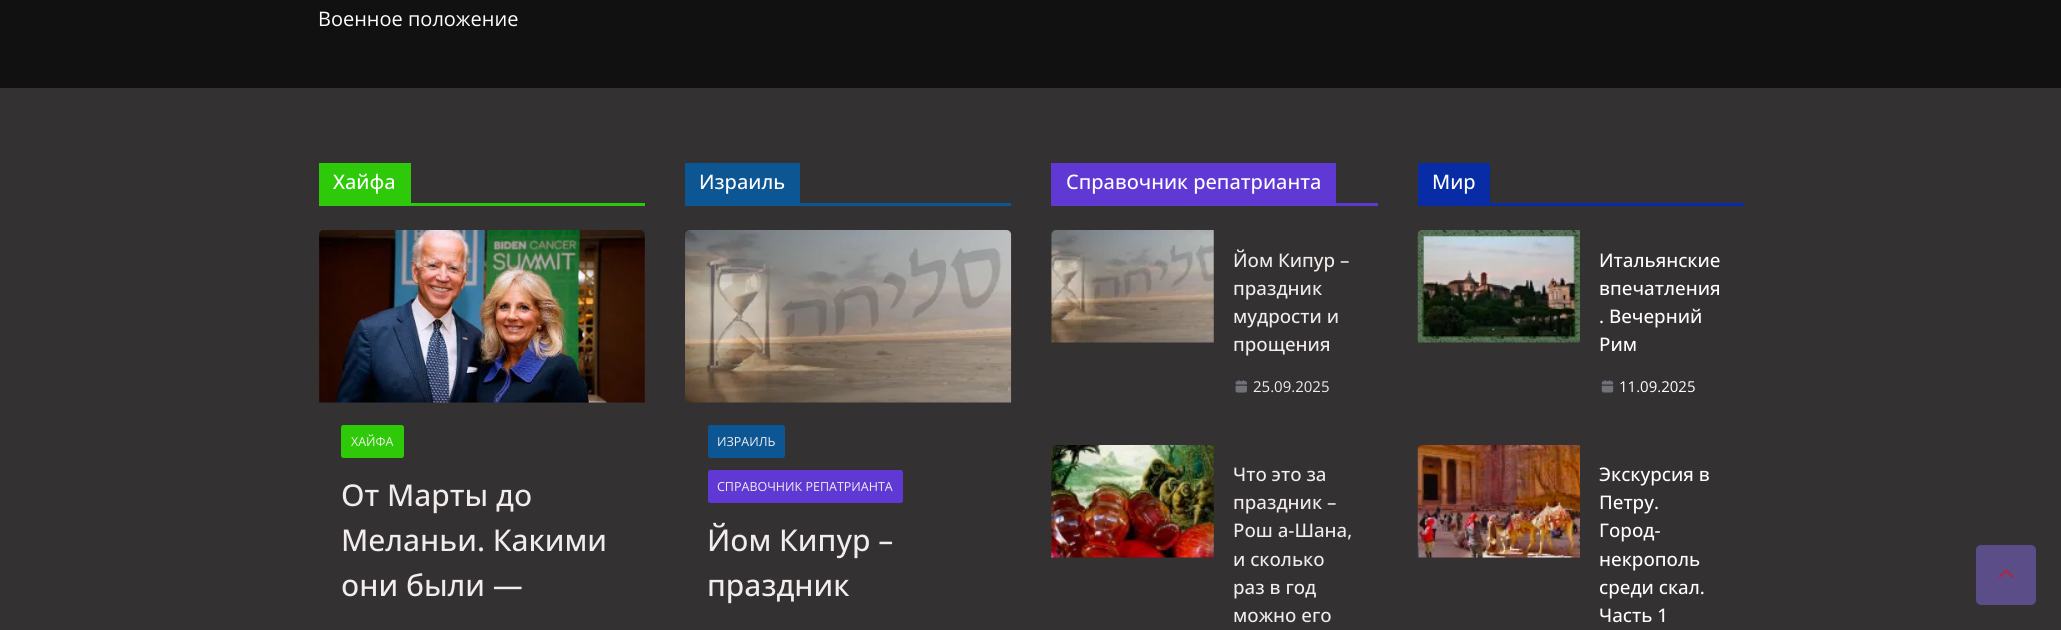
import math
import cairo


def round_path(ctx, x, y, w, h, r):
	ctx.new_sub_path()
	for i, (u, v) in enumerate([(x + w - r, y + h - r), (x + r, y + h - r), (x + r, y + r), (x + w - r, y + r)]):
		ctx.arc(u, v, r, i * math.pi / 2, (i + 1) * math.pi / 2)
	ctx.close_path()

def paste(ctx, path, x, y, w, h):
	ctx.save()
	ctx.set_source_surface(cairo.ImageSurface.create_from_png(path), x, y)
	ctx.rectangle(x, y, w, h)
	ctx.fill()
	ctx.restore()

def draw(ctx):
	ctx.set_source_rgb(0.067, 0.067, 0.067)
	ctx.paint()
	ctx.select_font_face('Open Sans')
	ctx.set_font_size(20)
	ctx.set_source_rgb(1, 1, 1)
	ctx.move_to(318, 26)
	ctx.show_text('Военное положение')
	ctx.set_source_rgb(0.2, 0.192, 0.192)
	ctx.rectangle(0, 88, 2061, 542)
	ctx.fill()
	ctx.set_source_rgb(0.18, 0.792, 0.039)
	ctx.rectangle(319, 203, 326, 3)
	ctx.rectangle(319, 163, 92, 40)
	ctx.fill()
	ctx.select_font_face('Open Sans Medium')
	ctx.set_source_rgb(1, 1, 1)
	ctx.move_to(333, 189)
	ctx.show_text('Хайфа')
	paste(ctx, 'media/1.png', 319, 230, 326, 173)
	ctx.set_source_rgb(0.18, 0.792, 0.039)
	round_path(ctx, 341, 425, 63, 33, 2.5)
	ctx.fill()
	ctx.select_font_face('Open Sans')
	ctx.set_font_size(12.5)
	ctx.set_source_rgb(0.949, 0.922, 0.922)
	ctx.move_to(351, 446)
	ctx.show_text('ХАЙФА')
	ctx.select_font_face('Open Sans Medium')
	ctx.set_font_size(30)
	for x, y, s in [
		(341, 506, 'От Марты до'),
		(341, 551, 'Меланьи. Какими'),
		(341, 596, 'они были —'),
	]:
		ctx.move_to(x, y)
		ctx.show_text(s)
	ctx.set_source_rgb(0.051, 0.337, 0.58)
	ctx.rectangle(685, 203, 326, 3)
	ctx.fill()
	ctx.rectangle(685, 163, 115, 40)
	ctx.fill()
	ctx.set_font_size(20)
	ctx.set_source_rgb(1, 1, 1)
	ctx.move_to(699, 189)
	ctx.show_text('Израиль')
	paste(ctx, 'media/2.png', 685, 230, 327, 173)
	ctx.set_source_rgb(0.051, 0.337, 0.58)
	round_path(ctx, 708, 425, 77, 33, 2.5)
	ctx.fill()
	ctx.select_font_face('Open Sans')
	ctx.set_font_size(12.5)
	ctx.set_source_rgb(0.949, 0.922, 0.922)
	ctx.move_to(717, 446)
	ctx.show_text('ИЗРАИЛЬ')
	ctx.set_source_rgb(0.376, 0.224, 0.831)
	round_path(ctx, 708, 470, 195, 33, 2.5)
	ctx.fill()
	ctx.set_source_rgb(0.949, 0.922, 0.922)
	ctx.move_to(717, 491)
	ctx.show_text('СПРАВОЧНИК РЕПАТРИАНТА')
	ctx.select_font_face('Open Sans Medium')
	ctx.set_font_size(30)
	ctx.move_to(707, 551)
	ctx.show_text('Йом Кипур –')
	ctx.move_to(707, 596)
	ctx.show_text('праздник')
	ctx.set_source_rgb(0.376, 0.224, 0.831)
	ctx.rectangle(1051, 203, 327, 3)
	ctx.fill()
	ctx.rectangle(1051, 163, 285, 40)
	ctx.fill()
	ctx.set_font_size(20)
	ctx.set_source_rgb(1, 1, 1)
	ctx.move_to(1066, 189)
	ctx.show_text('Справочник репатрианта')
	paste(ctx, 'media/3.png', 1051, 230, 163, 113)
	ctx.set_font_size(18.75)
	ctx.set_source_rgb(0.949, 0.922, 0.922)
	for x, y, s in [
		(1233, 267, 'Йом Кипур –'),
		(1233, 295, 'праздник'),
		(1233, 323, 'мудрости и'),
		(1233, 351, 'прощения'),
	]:
		ctx.move_to(x, y)
		ctx.show_text(s)
	paste(ctx, 'media/4.png', 1235, 380, 12, 13)
	ctx.select_font_face('Open Sans')
	ctx.set_font_size(15)
	ctx.move_to(1253, 392)
	ctx.show_text('25.09.2025')
	paste(ctx, 'media/5.png', 1051, 445, 163, 113)
	ctx.select_font_face('Open Sans Medium')
	ctx.set_font_size(18.75)
	for x, y, s in [
		(1233, 481, 'Что это за'),
		(1233, 509, 'праздник –'),
		(1233, 537, 'Рош а-Шана,'),
		(1233, 566, 'и сколько'),
		(1233, 594, 'раз в год'),
		(1233, 622, 'можно его'),
	]:
		ctx.move_to(x, y)
		ctx.show_text(s)
	ctx.set_source_rgb(0.031, 0.173, 0.647)
	ctx.rectangle(1418, 203, 326, 3)
	ctx.fill()
	ctx.rectangle(1418, 163, 72, 40)
	ctx.fill()
	ctx.set_font_size(20)
	ctx.set_source_rgb(1, 1, 1)
	ctx.move_to(1432, 189)
	ctx.show_text('Мир')
	paste(ctx, 'media/6.png', 1417, 230, 163, 113)
	ctx.set_font_size(18.75)
	for x, y, s in [
		(1599, 267, 'Итальянские'),
		(1599, 295, 'впечатления'),
		(1599, 323, '. Вечерний'),
		(1599, 351, 'Рим'),
	]:
		ctx.move_to(x, y)
		ctx.show_text(s)
	paste(ctx, 'media/7.png', 1601, 380, 13, 13)
	ctx.select_font_face('Open Sans')
	ctx.set_font_size(15)
	ctx.move_to(1619, 392)
	ctx.show_text('11.09.2025')
	paste(ctx, 'media/8.png', 1417, 445, 163, 113)
	ctx.select_font_face('Open Sans Medium')
	ctx.set_font_size(18.75)
	for x, y, s in [
		(1599, 481, 'Экскурсия в'),
		(1599, 509, 'Петру.'),
		(1599, 537, 'Город-'),
		(1599, 566, 'некрополь'),
		(1599, 594, 'среди скал.'),
		(1599, 622, 'Часть 1'),
	]:
		ctx.move_to(x, y)
		ctx.show_text(s)
	ctx.set_source_rgb(0.357, 0.302, 0.533)
	round_path(ctx, 1976, 545, 60, 60, 5)
	ctx.fill()
	paste(ctx, 'media/9.png', 1998, 569, 16, 9)


surface = cairo.ImageSurface(cairo.FORMAT_RGB24, 2061, 630)
ctx = cairo.Context(surface)
options = cairo.FontOptions()
options.set_hint_metrics(cairo.HINT_METRICS_OFF)
options.set_hint_style(cairo.HINT_STYLE_NONE)
ctx.set_font_options(options)
ctx.set_miter_limit(4)
draw(ctx)
surface.write_to_png('image.png')
